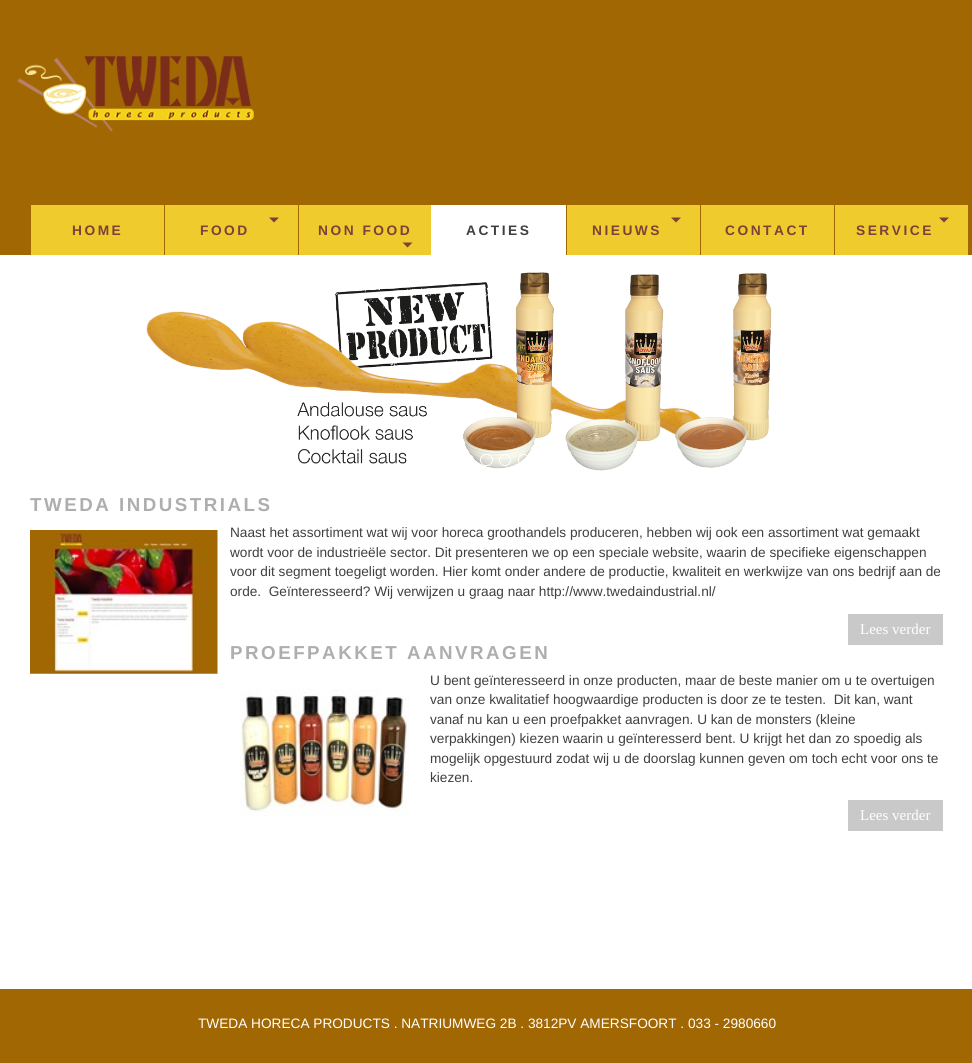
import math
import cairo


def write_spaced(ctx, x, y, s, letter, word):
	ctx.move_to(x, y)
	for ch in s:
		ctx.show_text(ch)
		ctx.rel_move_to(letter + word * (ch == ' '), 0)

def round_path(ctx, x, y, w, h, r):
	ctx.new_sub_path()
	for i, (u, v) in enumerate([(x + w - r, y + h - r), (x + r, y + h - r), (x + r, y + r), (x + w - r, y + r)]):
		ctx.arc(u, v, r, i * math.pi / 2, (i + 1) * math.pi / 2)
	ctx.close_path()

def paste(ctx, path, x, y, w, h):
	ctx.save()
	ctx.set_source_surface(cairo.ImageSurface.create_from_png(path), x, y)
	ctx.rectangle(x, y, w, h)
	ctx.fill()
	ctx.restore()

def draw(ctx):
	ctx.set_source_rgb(1, 1, 1)
	ctx.paint()
	ctx.set_source_rgb(0.631, 0.404, 0.012)
	ctx.rectangle(0, 0, 972, 255)
	ctx.fill()
	paste(ctx, 'media/1.png', 17, 56, 237, 76)
	ctx.set_source_rgb(0.937, 0.796, 0.176)
	ctx.rectangle(31, 205, 133, 50)
	ctx.fill()
	ctx.select_font_face('Liberation Sans', cairo.FONT_SLANT_NORMAL, cairo.FONT_WEIGHT_BOLD)
	ctx.set_font_size(13.75)
	ctx.set_source_rgb(0.49, 0.255, 0.216)
	write_spaced(ctx, 72, 235, 'HOME', 2.5, 0)
	ctx.set_source_rgb(0.937, 0.796, 0.176)
	ctx.rectangle(165, 205, 133, 50)
	ctx.fill()
	ctx.set_source_rgb(0.49, 0.255, 0.216)
	ctx.new_path()
	ctx.move_to(269, 217.5)
	ctx.line_to(279, 217.5)
	ctx.line_to(274, 222.5)
	ctx.close_path()
	ctx.fill()
	write_spaced(ctx, 200, 235, 'FOOD', 2.5, 0)
	ctx.set_source_rgb(0.937, 0.796, 0.176)
	ctx.rectangle(299, 205, 132, 50)
	ctx.fill()
	ctx.set_source_rgb(0.49, 0.255, 0.216)
	write_spaced(ctx, 318, 235, 'NON FOOD', 2.5, 0)
	ctx.new_path()
	ctx.move_to(402.5, 242.5)
	ctx.line_to(412.5, 242.5)
	ctx.line_to(407.5, 247.5)
	ctx.close_path()
	ctx.fill()
	ctx.set_source_rgb(1, 1, 1)
	ctx.rectangle(431, 205, 135, 50)
	ctx.fill()
	ctx.set_source_rgb(0.247, 0.247, 0.247)
	write_spaced(ctx, 466, 235, 'ACTIES', 2.5, 0)
	ctx.set_source_rgb(0.937, 0.796, 0.176)
	ctx.rectangle(567, 205, 133, 50)
	ctx.fill()
	ctx.set_source_rgb(0.49, 0.255, 0.216)
	ctx.new_path()
	ctx.move_to(671, 217.5)
	ctx.line_to(681, 217.5)
	ctx.line_to(676, 222.5)
	ctx.close_path()
	ctx.fill()
	write_spaced(ctx, 592, 235, 'NIEUWS', 2.5, 0)
	ctx.set_source_rgb(0.937, 0.796, 0.176)
	ctx.rectangle(701, 205, 133, 50)
	ctx.fill()
	ctx.set_source_rgb(0.49, 0.255, 0.216)
	write_spaced(ctx, 725, 235, 'CONTACT', 2.5, 0)
	ctx.set_source_rgb(0.937, 0.796, 0.176)
	ctx.rectangle(835, 205, 133, 50)
	ctx.fill()
	ctx.set_source_rgb(0.49, 0.255, 0.216)
	ctx.new_path()
	ctx.move_to(939, 217.5)
	ctx.line_to(949, 217.5)
	ctx.line_to(944, 222.5)
	ctx.close_path()
	ctx.fill()
	write_spaced(ctx, 856, 235, 'SERVICE', 2.5, 0)
	paste(ctx, 'media/2.png', 146, 272, 626, 199)
	round_path(ctx, 461.5, 454.5, 12, 11, 5.5)
	ctx.set_source_rgb(1, 1, 1)
	ctx.set_line_width(1)
	ctx.stroke()
	round_path(ctx, 480.5, 454.5, 12, 11, 5.5)
	ctx.stroke()
	ctx.arc(505, 460, 5.5, 0, 2 * math.pi)
	ctx.stroke()
	ctx.arc(524, 460, 5.5, 0, 2 * math.pi)
	ctx.stroke()
	ctx.set_font_size(18.75)
	ctx.set_source_rgb(0.682, 0.682, 0.682)
	write_spaced(ctx, 30, 511, 'TWEDA INDUSTRIALS', 2.5, 0)
	paste(ctx, 'media/3.png', 30, 530, 188, 144)
	ctx.select_font_face('Liberation Sans')
	ctx.set_font_size(13.65)
	ctx.set_source_rgb(0.247, 0.247, 0.247)
	for x, y, s in [
		(230, 537, 'Naast het assortiment wat wij voor horeca groothandels produceren, hebben wij ook een assortiment wat gemaakt'),
		(230, 557, 'wordt voor de industrieële sector. Dit presenteren we op een speciale website, waarin de specifieke eigenschappen'),
		(230, 576, 'voor dit segment toegeligt worden. Hier komt onder andere de productie, kwaliteit en werkwijze van ons bedrijf aan de'),
		(230, 596, 'orde.  Geïnteresseerd? Wij verwijzen u graag naar http://www.twedaindustrial.nl/'),
	]:
		ctx.move_to(x, y)
		ctx.show_text(s)
	ctx.set_source_rgb(0.788, 0.788, 0.788)
	ctx.rectangle(848, 614, 95, 31)
	ctx.fill()
	ctx.select_font_face('Liberation Serif')
	ctx.set_font_size(15)
	ctx.set_source_rgb(1, 1, 1)
	ctx.move_to(860, 634)
	ctx.show_text('Lees verder')
	ctx.select_font_face('Liberation Sans', cairo.FONT_SLANT_NORMAL, cairo.FONT_WEIGHT_BOLD)
	ctx.set_font_size(18.75)
	ctx.set_source_rgb(0.682, 0.682, 0.682)
	write_spaced(ctx, 230, 659, 'PROEFPAKKET AANVRAGEN', 2.5, 0)
	paste(ctx, 'media/4.png', 239, 689, 171, 128)
	ctx.select_font_face('Liberation Sans')
	ctx.set_font_size(13.65)
	ctx.set_source_rgb(0.247, 0.247, 0.247)
	for x, y, s in [
		(430, 685, 'U bent geïnteresseerd in onze producten, maar de beste manier om u te overtuigen'),
		(430, 704, 'van onze kwalitatief hoogwaardige producten is door ze te testen.  Dit kan, want'),
		(430, 724, 'vanaf nu kan u een proefpakket aanvragen. U kan de monsters (kleine'),
		(430, 743, 'verpakkingen) kiezen waarin u geïnteresserd bent. U krijgt het dan zo spoedig als'),
		(430, 763, 'mogelijk opgestuurd zodat wij u de doorslag kunnen geven om toch echt voor ons te'),
		(430, 782, 'kiezen.'),
	]:
		ctx.move_to(x, y)
		ctx.show_text(s)
	ctx.set_source_rgb(0.788, 0.788, 0.788)
	ctx.rectangle(848, 800, 95, 31)
	ctx.fill()
	ctx.select_font_face('Liberation Serif')
	ctx.set_font_size(15)
	ctx.set_source_rgb(1, 1, 1)
	ctx.move_to(860, 820)
	ctx.show_text('Lees verder')
	ctx.set_source_rgb(0.631, 0.404, 0.012)
	ctx.rectangle(0, 989, 972, 74)
	ctx.fill()
	ctx.select_font_face('Liberation Sans')
	ctx.set_font_size(13.65)
	ctx.set_source_rgb(1, 1, 1)
	ctx.move_to(198, 1028)
	ctx.show_text('TWEDA HORECA PRODUCTS . NATRIUMWEG 2B . 3812PV AMERSFOORT . 033 - 2980660')


surface = cairo.ImageSurface(cairo.FORMAT_RGB24, 972, 1063)
ctx = cairo.Context(surface)
options = cairo.FontOptions()
options.set_hint_metrics(cairo.HINT_METRICS_OFF)
options.set_hint_style(cairo.HINT_STYLE_NONE)
ctx.set_font_options(options)
ctx.set_miter_limit(4)
draw(ctx)
surface.write_to_png('image.png')
